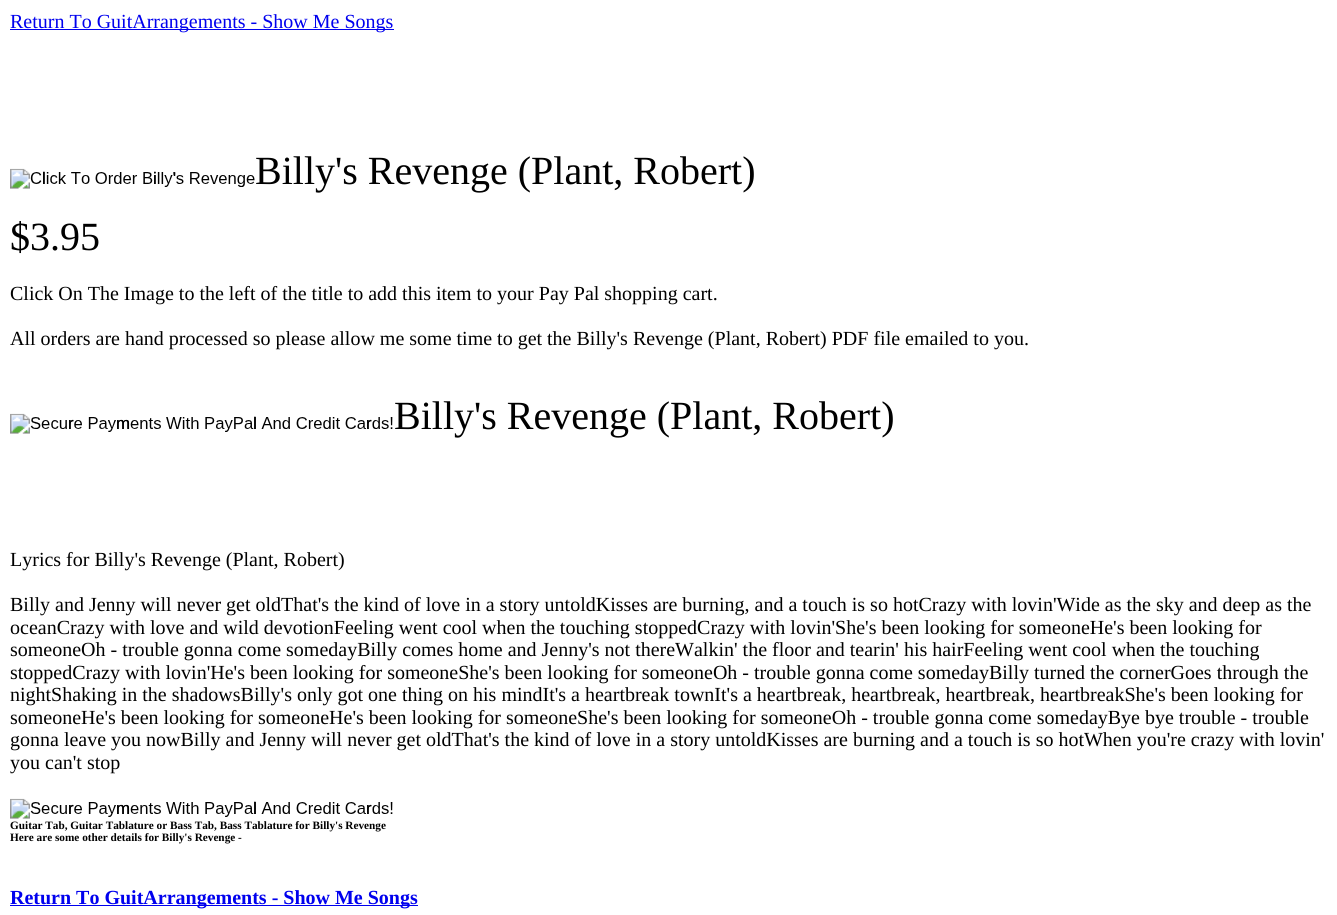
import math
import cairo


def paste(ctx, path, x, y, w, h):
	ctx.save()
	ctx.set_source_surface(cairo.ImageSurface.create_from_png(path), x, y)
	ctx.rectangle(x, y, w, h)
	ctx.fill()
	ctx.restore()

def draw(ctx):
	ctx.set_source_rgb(1, 1, 1)
	ctx.paint()
	ctx.set_source_rgb(0, 0, 0.933)
	ctx.rectangle(10, 29, 384, 1)
	ctx.fill()
	ctx.select_font_face('Liberation Serif')
	ctx.set_font_size(20)
	ctx.move_to(10, 28)
	ctx.show_text('Return To GuitArrangements - Show Me Songs')
	paste(ctx, 'media/1.png', 10, 168, 245, 21)
	ctx.select_font_face('Liberation Sans')
	ctx.set_font_size(17)
	ctx.set_source_rgb(0, 0, 0)
	for x, y, s in [
		(42, 184, 'l'),
		(153, 184, 'i'),
		(173, 184, '\''),
	]:
		ctx.move_to(x, y)
		ctx.show_text(s)
	ctx.select_font_face('Liberation Serif')
	ctx.set_font_size(40)
	ctx.move_to(255, 184)
	ctx.show_text('Billy\'s Revenge (Plant, Robert)')
	ctx.move_to(10, 250)
	ctx.show_text('$3.95')
	ctx.set_font_size(20)
	ctx.move_to(10, 300)
	ctx.show_text('Click On The Image to the left of the title to add this item to your Pay Pal shopping cart.')
	ctx.move_to(10, 345)
	ctx.show_text('All orders are hand processed so please allow me some time to get the Billy\'s Revenge (Plant, Robert) PDF file emailed to you.')
	paste(ctx, 'media/2.png', 10, 413, 383, 21)
	ctx.select_font_face('Liberation Sans')
	ctx.set_font_size(17)
	for x, y, s in [
		(68, 429, 'r'),
		(116, 429, 'm'),
		(253, 429, 'l'),
		(366, 429, 'r'),
	]:
		ctx.move_to(x, y)
		ctx.show_text(s)
	ctx.select_font_face('Liberation Serif')
	ctx.set_font_size(40)
	ctx.move_to(394, 429)
	ctx.show_text('Billy\'s Revenge (Plant, Robert)')
	ctx.set_font_size(20)
	for x, y, s in [
		(10, 566, 'Lyrics for Billy\'s Revenge (Plant, Robert)'),
		(10, 611, 'Billy and Jenny will never get oldThat\'s the kind of love in a story untoldKisses are burning, and a touch is so hotCrazy with lovin\'Wide as the sky and deep as the'),
		(10, 634, 'oceanCrazy with love and wild devotionFeeling went cool when the touching stoppedCrazy with lovin\'She\'s been looking for someoneHe\'s been looking for'),
		(10, 656, 'someoneOh - trouble gonna come somedayBilly comes home and Jenny\'s not thereWalkin\' the floor and tearin\' his hairFeeling went cool when the touching'),
		(10, 679, 'stoppedCrazy with lovin\'He\'s been looking for someoneShe\'s been looking for someoneOh - trouble gonna come somedayBilly turned the cornerGoes through the'),
		(10, 701, 'nightShaking in the shadowsBilly\'s only got one thing on his mindIt\'s a heartbreak townIt\'s a heartbreak, heartbreak, heartbreak, heartbreakShe\'s been looking for'),
		(10, 724, 'someoneHe\'s been looking for someoneHe\'s been looking for someoneShe\'s been looking for someoneOh - trouble gonna come somedayBye bye trouble - trouble'),
		(10, 746, 'gonna leave you nowBilly and Jenny will never get oldThat\'s the kind of love in a story untoldKisses are burning and a touch is so hotWhen you\'re crazy with lovin\''),
		(10, 769, 'you can\'t stop'),
	]:
		ctx.move_to(x, y)
		ctx.show_text(s)
	paste(ctx, 'media/2.png', 10, 798, 383, 21)
	ctx.select_font_face('Liberation Sans')
	ctx.set_font_size(17)
	for x, y, s in [
		(68, 814, 'r'),
		(116, 814, 'm'),
		(253, 814, 'l'),
		(366, 814, 'r'),
	]:
		ctx.move_to(x, y)
		ctx.show_text(s)
	ctx.select_font_face('Liberation Serif', cairo.FONT_SLANT_NORMAL, cairo.FONT_WEIGHT_BOLD)
	ctx.set_font_size(11.25)
	ctx.move_to(10, 829)
	ctx.show_text('Guitar Tab, Guitar Tablature or Bass Tab, Bass Tablature for Billy\'s Revenge')
	ctx.move_to(10, 841)
	ctx.show_text('Here are some other details for Billy\'s Revenge -')
	ctx.set_source_rgb(0, 0, 0.933)
	ctx.rectangle(10, 905, 408, 1)
	ctx.fill()
	ctx.set_font_size(20)
	ctx.move_to(10, 904)
	ctx.show_text('Return To GuitArrangements - Show Me Songs')


surface = cairo.ImageSurface(cairo.FORMAT_RGB24, 1337, 915)
ctx = cairo.Context(surface)
options = cairo.FontOptions()
options.set_hint_metrics(cairo.HINT_METRICS_OFF)
options.set_hint_style(cairo.HINT_STYLE_NONE)
ctx.set_font_options(options)
ctx.set_miter_limit(4)
draw(ctx)
surface.write_to_png('image.png')
